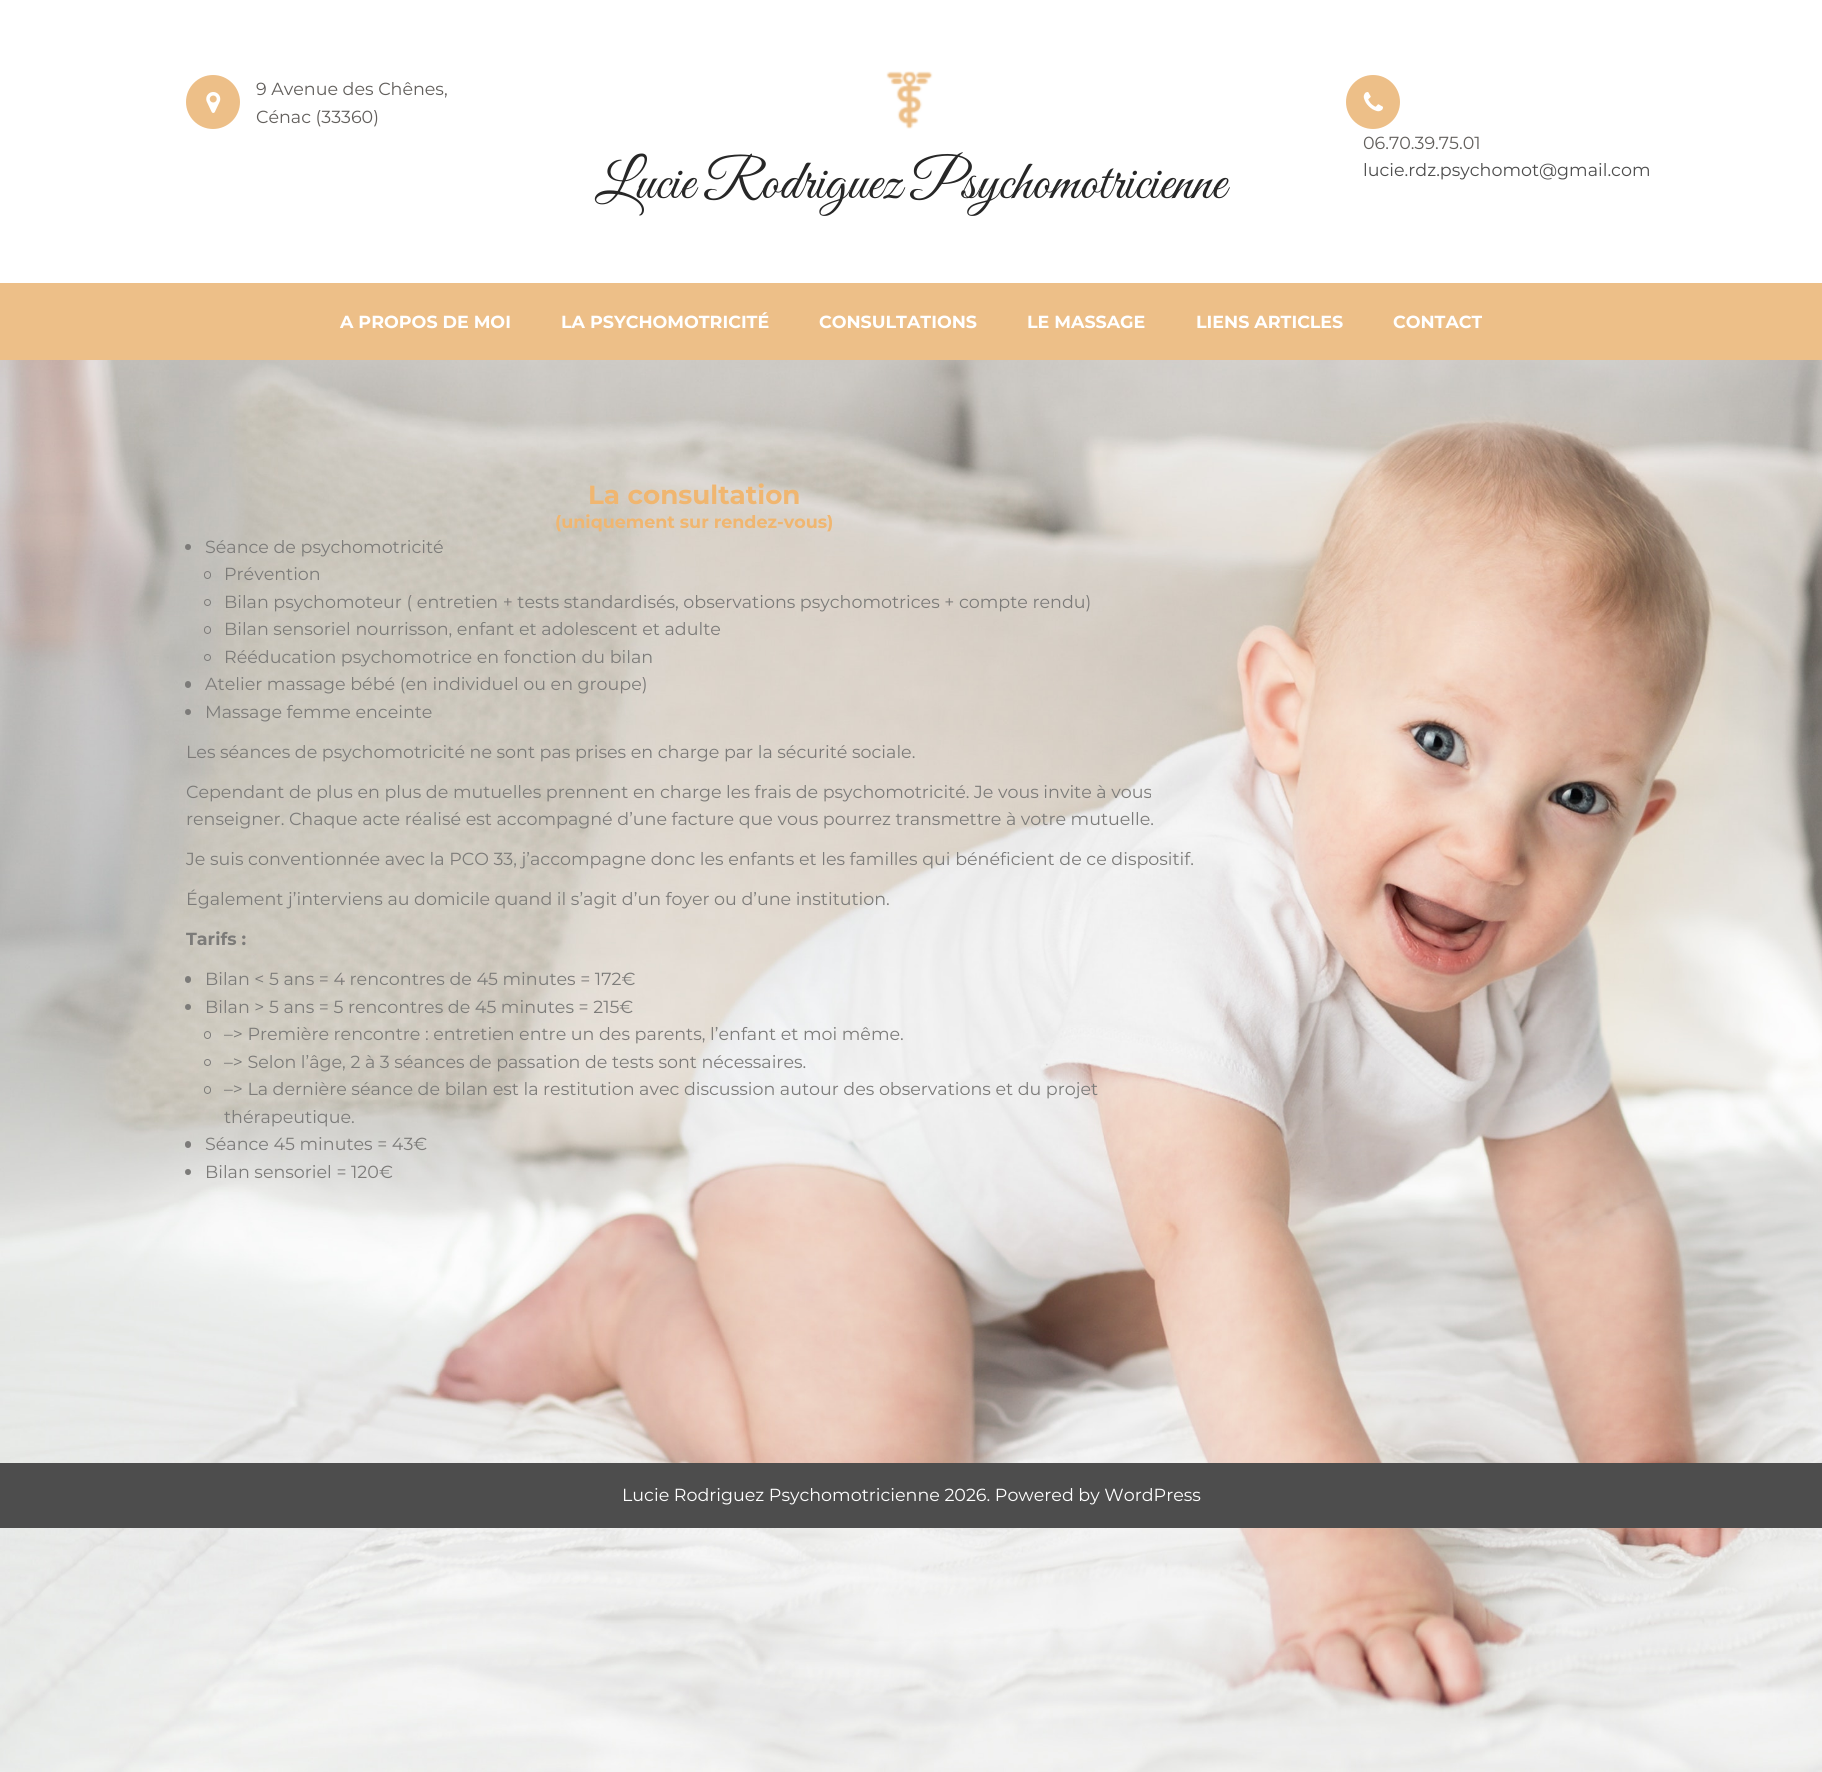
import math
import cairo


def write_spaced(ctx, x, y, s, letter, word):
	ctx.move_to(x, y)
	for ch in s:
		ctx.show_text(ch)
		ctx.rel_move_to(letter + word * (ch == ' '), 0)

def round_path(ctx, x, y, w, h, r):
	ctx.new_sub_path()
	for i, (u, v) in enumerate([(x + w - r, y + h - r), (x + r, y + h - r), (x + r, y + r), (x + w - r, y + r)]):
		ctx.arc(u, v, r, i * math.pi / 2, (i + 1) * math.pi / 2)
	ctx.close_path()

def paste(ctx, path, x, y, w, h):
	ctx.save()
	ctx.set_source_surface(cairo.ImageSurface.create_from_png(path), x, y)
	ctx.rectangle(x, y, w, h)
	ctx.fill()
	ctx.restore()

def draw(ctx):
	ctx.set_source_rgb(1, 1, 1)
	ctx.paint()
	paste(ctx, 'media/1.png', 0, 360, 1822, 1412)
	ctx.set_source_rgb(0.929, 0.749, 0.533)
	ctx.arc(213, 102, 27, 0, 2 * math.pi)
	ctx.fill()
	paste(ctx, 'media/2.png', 206, 92, 15, 21)
	ctx.select_font_face('Montserrat')
	ctx.set_font_size(17.5)
	ctx.set_source_rgb(0.384, 0.373, 0.361)
	ctx.move_to(256, 95)
	ctx.show_text('9 Avenue des Chênes,')
	ctx.move_to(256, 123)
	ctx.show_text('Cénac (33360)')
	paste(ctx, 'media/3.png', 886, 71, 47, 58)
	ctx.select_font_face('Great Vibes')
	ctx.set_font_size(56.25)
	ctx.set_source_rgb(0.153, 0.153, 0.153)
	write_spaced(ctx, 595, 198, 'Lucie Rodriguez Psychomotricienne', 0, -1)
	ctx.set_source_rgb(0.929, 0.749, 0.533)
	ctx.new_path()
	ctx.arc(1373, 102, 27, 0, 2 * math.pi)
	ctx.fill()
	paste(ctx, 'media/4.png', 1363, 92, 20, 20)
	ctx.select_font_face('Montserrat')
	ctx.set_font_size(17.5)
	ctx.set_source_rgb(0.384, 0.373, 0.361)
	ctx.move_to(1363, 149)
	ctx.show_text('06.70.39.75.01')
	ctx.set_source_rgb(0.302, 0.302, 0.302)
	ctx.move_to(1363, 176)
	ctx.show_text('lucie.rdz.psychomot@gmail.com')
	ctx.set_source_rgb(0.929, 0.749, 0.533)
	ctx.rectangle(0, 283, 1822, 77)
	ctx.fill()
	ctx.select_font_face('Montserrat', cairo.FONT_SLANT_NORMAL, cairo.FONT_WEIGHT_BOLD)
	ctx.set_source_rgb(1, 1, 1)
	for x, y, s in [
		(340, 328, 'A PROPOS DE MOI'),
		(561, 328, 'LA PSYCHOMOTRICITÉ'),
		(819, 328, 'CONSULTATIONS'),
		(1027, 328, 'LE MASSAGE'),
		(1196, 328, 'LIENS ARTICLES'),
		(1393, 328, 'CONTACT'),
	]:
		ctx.move_to(x, y)
		ctx.show_text(s)
	ctx.set_font_size(26.25)
	ctx.set_source_rgb(0.941, 0.714, 0.439)
	ctx.move_to(588, 504)
	ctx.show_text('La consultation')
	ctx.set_font_size(17.5)
	ctx.move_to(555, 528)
	ctx.show_text('(uniquement sur rendez-vous)')
	ctx.set_source_rgb(0.486, 0.482, 0.475)
	ctx.new_path()
	ctx.arc(188, 547, 3, 0, 2 * math.pi)
	ctx.fill()
	ctx.select_font_face('Montserrat')
	ctx.move_to(205, 553)
	ctx.show_text('Séance de psychomotricité')
	round_path(ctx, 204.5, 571.5, 6, 7, 3)
	ctx.set_line_width(1)
	ctx.stroke()
	ctx.move_to(224, 580)
	ctx.show_text('Prévention')
	ctx.new_path()
	ctx.arc(207.5, 602.5, 3, 0, 2 * math.pi)
	ctx.stroke()
	ctx.move_to(224, 608)
	ctx.show_text('Bilan psychomoteur ( entretien + tests standardisés, observations psychomotrices + compte rendu)')
	round_path(ctx, 204.5, 626.5, 6, 7, 3)
	ctx.stroke()
	ctx.move_to(224, 635)
	ctx.show_text('Bilan sensoriel nourrisson, enfant et adolescent et adulte')
	ctx.new_path()
	ctx.arc(207.5, 657.5, 3, 0, 2 * math.pi)
	ctx.stroke()
	ctx.move_to(224, 663)
	ctx.show_text('Rééducation psychomotrice en fonction du bilan')
	round_path(ctx, 185, 681, 6, 7, 3)
	ctx.fill()
	ctx.move_to(205, 690)
	ctx.show_text('Atelier massage bébé (en individuel ou en groupe)')
	ctx.new_path()
	ctx.arc(188, 712, 3, 0, 2 * math.pi)
	ctx.fill()
	for x, y, s in [
		(205, 718, 'Massage femme enceinte'),
		(186, 758, 'Les séances de psychomotricité ne sont pas prises en charge par la sécurité sociale.'),
		(186, 798, 'Cependant de plus en plus de mutuelles prennent en charge les frais de psychomotricité. Je vous invite à vous'),
		(186, 825, 'renseigner. Chaque acte réalisé est accompagné d’une facture que vous pourrez transmettre à votre mutuelle.'),
		(186, 865, 'Je suis conventionnée avec la PCO 33, j’accompagne donc les enfants et les familles qui bénéficient de ce dispositif.'),
		(186, 905, 'Également j’interviens au domicile quand il s’agit d’un foyer ou d’une institution.'),
	]:
		ctx.move_to(x, y)
		ctx.show_text(s)
	ctx.select_font_face('Montserrat', cairo.FONT_SLANT_NORMAL, cairo.FONT_WEIGHT_BOLD)
	ctx.move_to(186, 945)
	ctx.show_text('Tarifs :')
	round_path(ctx, 185, 976, 6, 7, 3)
	ctx.fill()
	ctx.select_font_face('Montserrat')
	ctx.move_to(205, 985)
	ctx.show_text('Bilan < 5 ans = 4 rencontres de 45 minutes = 172€')
	ctx.new_path()
	ctx.arc(188, 1007, 3, 0, 2 * math.pi)
	ctx.fill()
	ctx.move_to(205, 1013)
	ctx.show_text('Bilan > 5 ans = 5 rencontres de 45 minutes = 215€')
	round_path(ctx, 204.5, 1031.5, 6, 7, 3)
	ctx.stroke()
	ctx.move_to(224, 1040)
	ctx.show_text('–> Première rencontre : entretien entre un des parents, l’enfant et moi même.')
	ctx.new_path()
	ctx.arc(207.5, 1062.5, 3, 0, 2 * math.pi)
	ctx.stroke()
	ctx.move_to(224, 1068)
	ctx.show_text('–> Selon l’âge, 2 à 3 séances de passation de tests sont nécessaires.')
	round_path(ctx, 204.5, 1086.5, 6, 7, 3)
	ctx.stroke()
	ctx.move_to(224, 1095)
	ctx.show_text('–> La dernière séance de bilan est la restitution avec discussion autour des observations et du projet')
	ctx.move_to(224, 1123)
	ctx.show_text('thérapeutique.')
	round_path(ctx, 185, 1141, 6, 7, 3)
	ctx.fill()
	ctx.move_to(205, 1150)
	ctx.show_text('Séance 45 minutes = 43€')
	ctx.new_path()
	ctx.arc(188, 1172, 3, 0, 2 * math.pi)
	ctx.fill()
	ctx.move_to(205, 1178)
	ctx.show_text('Bilan sensoriel = 120€')
	ctx.set_source_rgb(0.302, 0.302, 0.302)
	ctx.rectangle(0, 1463, 1822, 65)
	ctx.fill()
	ctx.set_source_rgb(1, 1, 1)
	ctx.move_to(622, 1501)
	ctx.show_text('Lucie Rodriguez Psychomotricienne 2026. Powered by WordPress')


surface = cairo.ImageSurface(cairo.FORMAT_RGB24, 1822, 1772)
ctx = cairo.Context(surface)
options = cairo.FontOptions()
options.set_hint_metrics(cairo.HINT_METRICS_OFF)
options.set_hint_style(cairo.HINT_STYLE_NONE)
ctx.set_font_options(options)
ctx.set_miter_limit(4)
draw(ctx)
surface.write_to_png('image.png')
